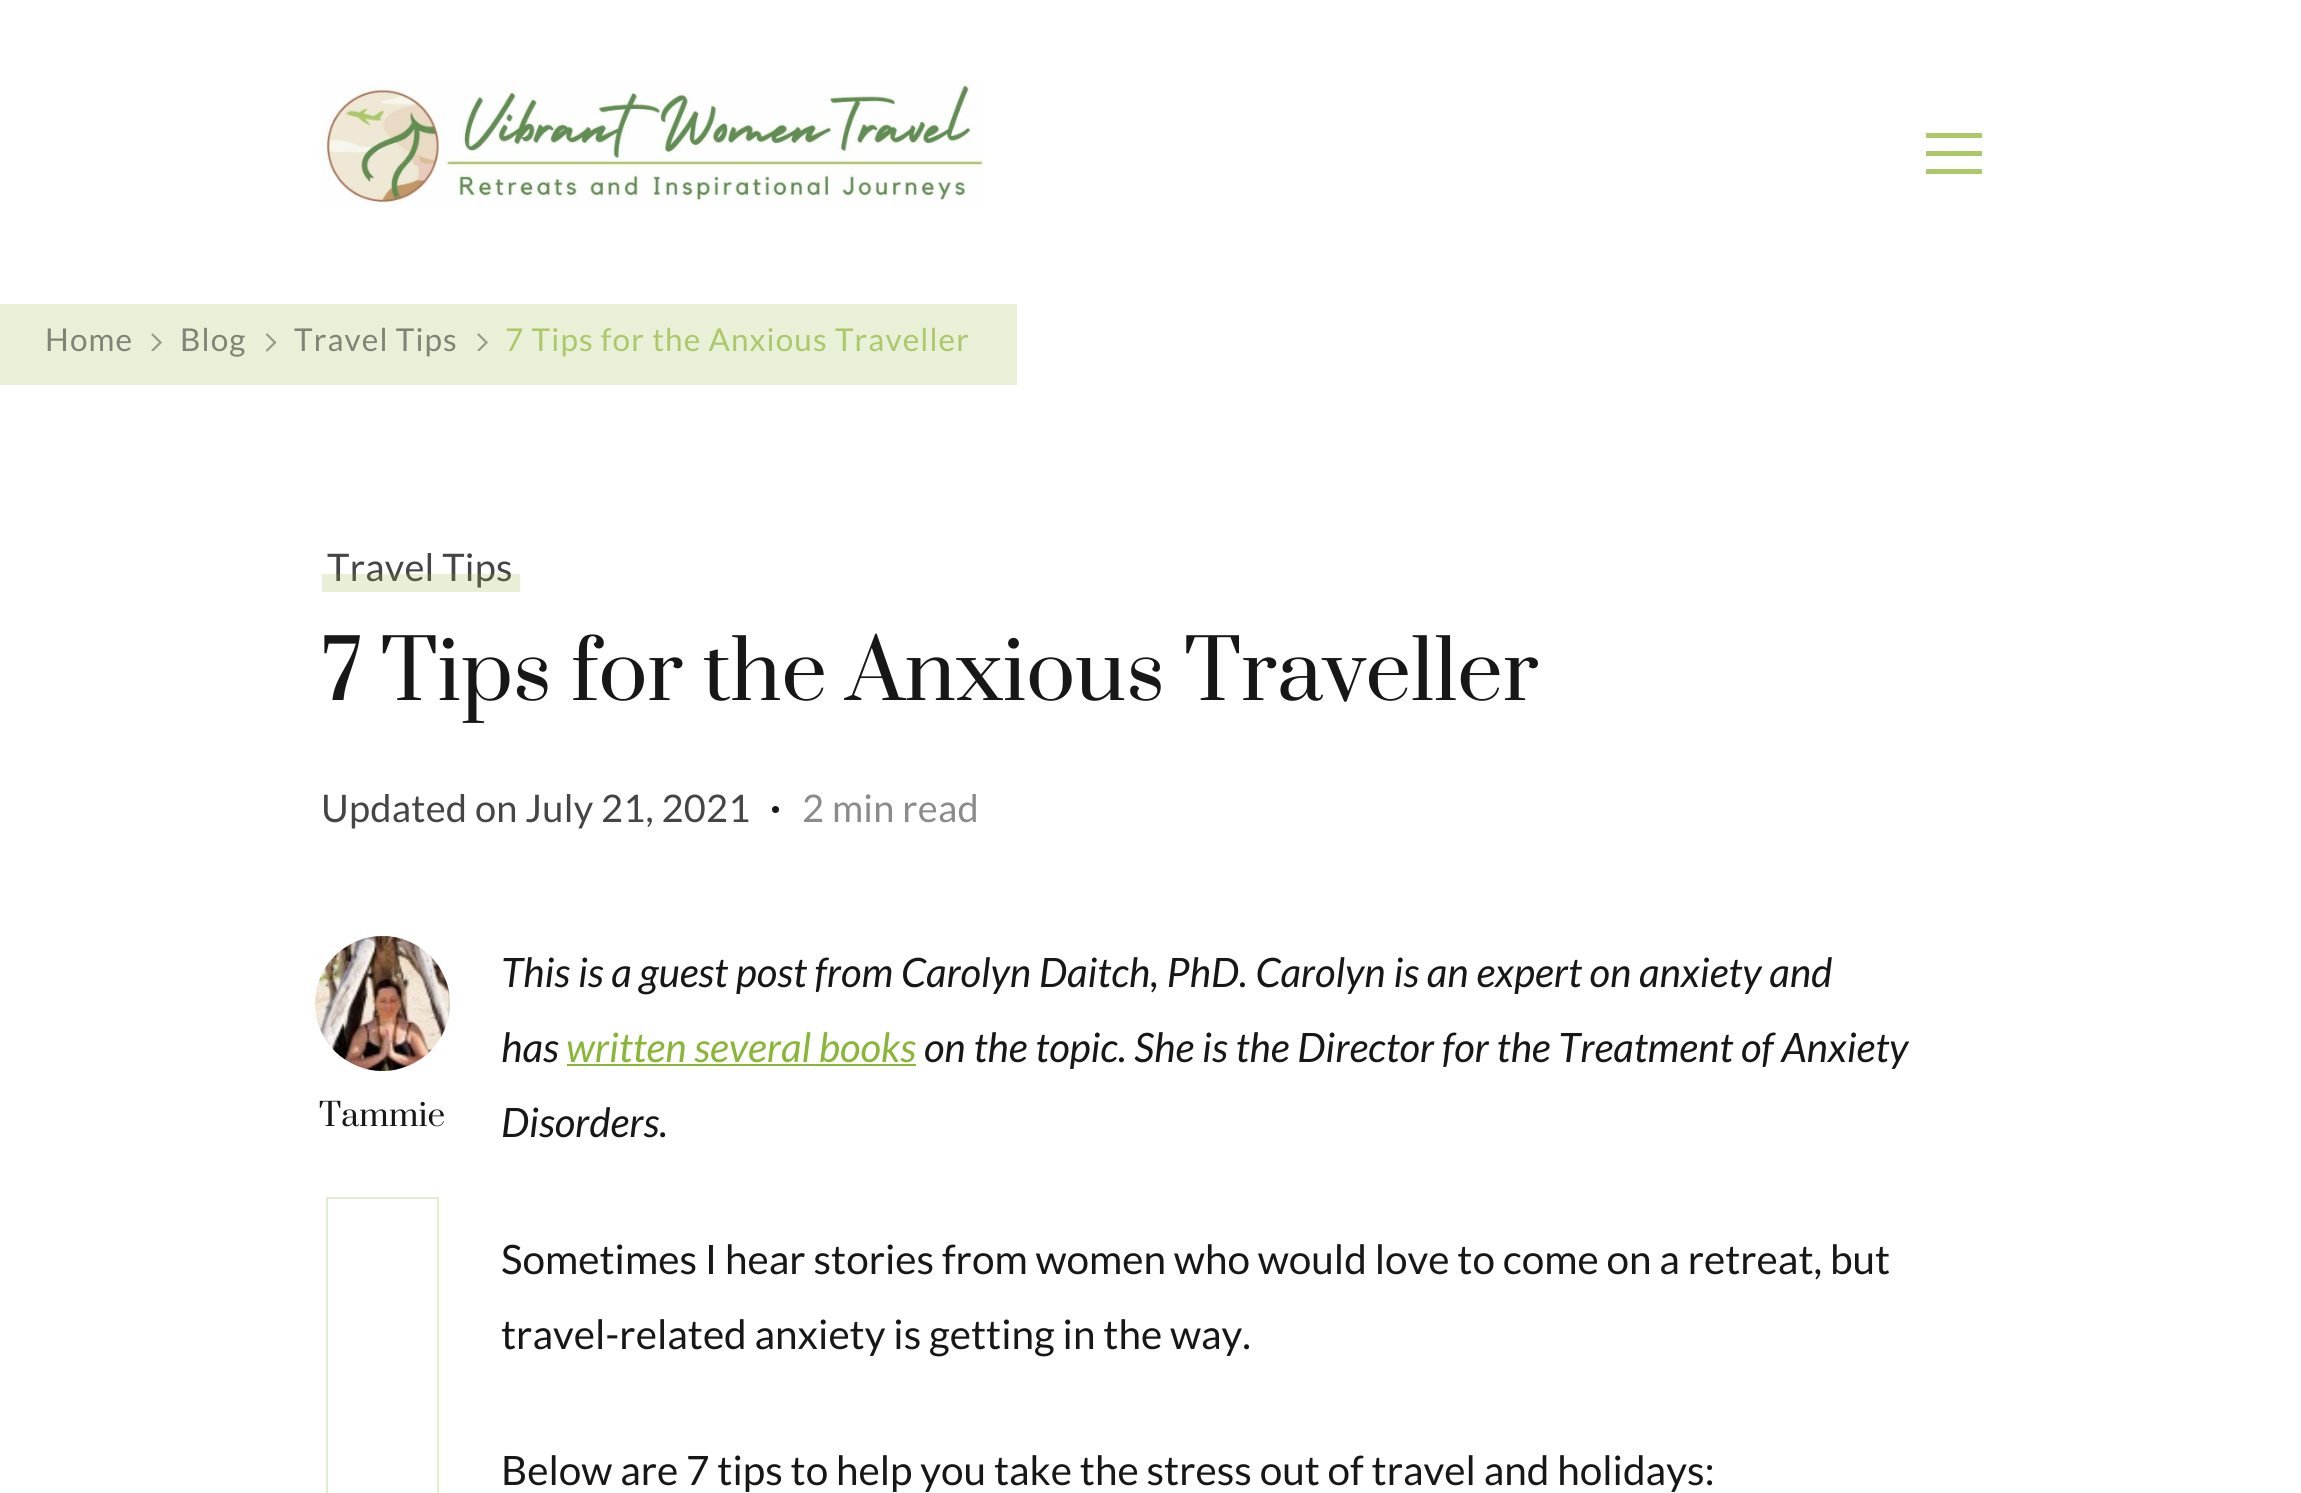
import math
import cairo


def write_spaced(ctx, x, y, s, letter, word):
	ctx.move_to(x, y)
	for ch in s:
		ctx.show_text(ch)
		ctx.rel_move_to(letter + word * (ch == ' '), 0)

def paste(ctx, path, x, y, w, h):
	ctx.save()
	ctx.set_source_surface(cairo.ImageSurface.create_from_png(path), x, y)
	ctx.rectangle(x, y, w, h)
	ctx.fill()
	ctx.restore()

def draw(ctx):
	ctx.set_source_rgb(1, 1, 1)
	ctx.paint()
	paste(ctx, 'media/1.png', 322, 80, 662, 126)
	ctx.set_source_rgb(0.675, 0.784, 0.412)
	ctx.rectangle(1926, 133, 56, 5)
	ctx.rectangle(1926, 151, 56, 5)
	ctx.rectangle(1926, 169, 56, 5)
	ctx.fill()
	ctx.set_source_rgb(0.91, 0.941, 0.843)
	ctx.rectangle(0, 304, 1017, 81)
	ctx.fill()
	ctx.select_font_face('Lato')
	ctx.set_font_size(31.5)
	ctx.set_source_rgb(0.502, 0.518, 0.467)
	write_spaced(ctx, 45, 351, 'Home', 1.1, 0)
	ctx.save()
	ctx.rectangle(151, 333, 11, 18)
	ctx.clip()
	ctx.new_path()
	ctx.move_to(152.5, 334.5)
	ctx.line_to(160.5, 342.5)
	ctx.line_to(152.5, 350.5)
	ctx.set_source_rgb(0.588, 0.608, 0.549)
	ctx.set_line_width(2.2)
	ctx.set_line_cap(cairo.LINE_CAP_ROUND)
	ctx.stroke()
	ctx.restore()
	write_spaced(ctx, 180, 351, 'Blog', 1.1, 0)
	ctx.new_path()
	ctx.move_to(267, 334.5)
	ctx.line_to(275, 342.5)
	ctx.line_to(267, 350.5)
	ctx.set_source_rgb(0.588, 0.608, 0.549)
	ctx.set_line_width(2.2)
	ctx.set_line_cap(cairo.LINE_CAP_ROUND)
	ctx.stroke()
	ctx.set_source_rgb(0.502, 0.518, 0.467)
	write_spaced(ctx, 294, 351, 'Travel Tips', 1.1, 0)
	ctx.save()
	ctx.rectangle(477, 333, 11, 18)
	ctx.clip()
	ctx.new_path()
	ctx.move_to(478.5, 334.5)
	ctx.line_to(486.5, 342.5)
	ctx.line_to(478.5, 350.5)
	ctx.set_source_rgb(0.588, 0.608, 0.549)
	ctx.stroke()
	ctx.restore()
	ctx.set_source_rgb(0.675, 0.784, 0.412)
	write_spaced(ctx, 505, 351, '7 Tips for the Anxious Traveller', 1.1, 0)
	ctx.set_font_size(38)
	ctx.set_source_rgb(0.271, 0.271, 0.271)
	write_spaced(ctx, 327, 581, 'Travel Tips', 0.25, 0)
	ctx.set_source_rgba(0.537, 0.71, 0.22, 0.2)
	ctx.rectangle(322, 574, 198, 18)
	ctx.fill()
	ctx.select_font_face('Prata')
	ctx.set_font_size(81)
	ctx.set_source_rgb(0.09, 0.09, 0.09)
	ctx.move_to(321, 700)
	ctx.show_text('7 Tips for the Anxious Traveller')
	ctx.select_font_face('Lato')
	ctx.set_font_size(38)
	ctx.set_source_rgb(0.271, 0.271, 0.271)
	write_spaced(ctx, 321, 822, 'Updated on July 21, 2021', 0.25, 0)
	ctx.set_source_rgb(0.09, 0.09, 0.09)
	ctx.new_path()
	ctx.arc(775.5, 809.5, 3.5, 0, 2 * math.pi)
	ctx.fill()
	ctx.set_source_rgb(0.545, 0.545, 0.545)
	write_spaced(ctx, 802, 822, '2 min read', 0.25, 0)
	paste(ctx, 'media/2.png', 315, 936, 135, 135)
	ctx.select_font_face('Prata')
	ctx.set_font_size(31.5)
	ctx.set_source_rgb(0.09, 0.09, 0.09)
	ctx.move_to(319, 1126)
	ctx.show_text('Tammie')
	ctx.rectangle(327, 1198, 111, 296)
	ctx.set_source_rgb(0.886, 0.929, 0.804)
	ctx.set_line_width(2)
	ctx.set_line_cap(cairo.LINE_CAP_BUTT)
	ctx.stroke()
	ctx.select_font_face('Lato', cairo.FONT_SLANT_ITALIC)
	ctx.set_font_size(40.5)
	ctx.set_source_rgb(0.09, 0.09, 0.09)
	ctx.move_to(501, 987)
	ctx.show_text('This is a guest post from Carolyn Daitch, PhD. Carolyn is an expert on anxiety and')
	ctx.move_to(501, 1062)
	ctx.show_text('has')
	ctx.set_source_rgb(0.537, 0.71, 0.22)
	ctx.move_to(566, 1062)
	ctx.show_text('written several books')
	ctx.rectangle(567, 1064, 349, 2)
	ctx.fill()
	ctx.set_source_rgb(0.09, 0.09, 0.09)
	ctx.move_to(924, 1062)
	ctx.show_text('on the topic. She is the Director for the Treatment of Anxiety')
	ctx.move_to(501, 1137)
	ctx.show_text('Disorders.')
	ctx.select_font_face('Lato')
	for x, y, s in [
		(501, 1274, 'Sometimes I hear stories from women who would love to come on a retreat, but'),
		(501, 1349, 'travel-related anxiety is getting in the way.'),
		(501, 1485, 'Below are 7 tips to help you take the stress out of travel and holidays:'),
	]:
		ctx.move_to(x, y)
		ctx.show_text(s)


surface = cairo.ImageSurface(cairo.FORMAT_RGB24, 2301, 1493)
ctx = cairo.Context(surface)
options = cairo.FontOptions()
options.set_hint_metrics(cairo.HINT_METRICS_OFF)
options.set_hint_style(cairo.HINT_STYLE_NONE)
ctx.set_font_options(options)
ctx.set_miter_limit(4)
draw(ctx)
surface.write_to_png('image.png')
